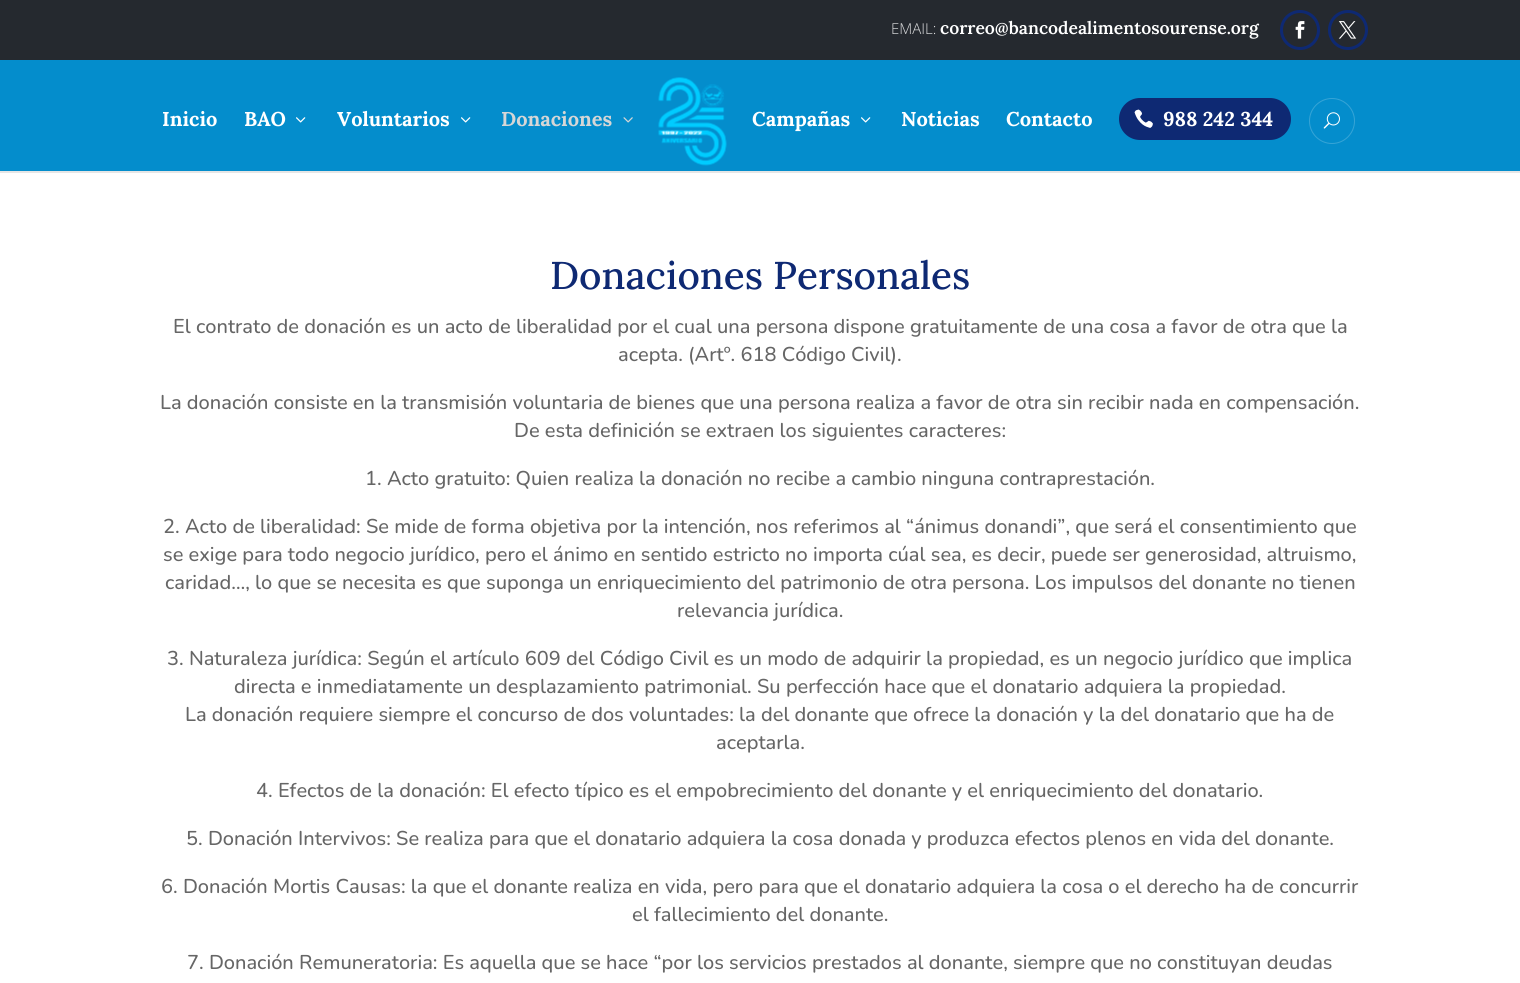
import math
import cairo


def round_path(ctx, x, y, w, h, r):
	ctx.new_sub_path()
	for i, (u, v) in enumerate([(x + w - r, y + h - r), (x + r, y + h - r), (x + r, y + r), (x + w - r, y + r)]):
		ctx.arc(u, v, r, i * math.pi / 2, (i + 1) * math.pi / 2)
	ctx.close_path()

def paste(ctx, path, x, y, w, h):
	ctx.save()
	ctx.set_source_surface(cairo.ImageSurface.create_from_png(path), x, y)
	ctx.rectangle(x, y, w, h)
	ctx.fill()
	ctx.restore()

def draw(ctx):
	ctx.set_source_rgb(1, 1, 1)
	ctx.paint()
	ctx.set_source_rgb(0.145, 0.161, 0.184)
	ctx.rectangle(0, 0, 1520, 60)
	ctx.fill()
	ctx.select_font_face('Open Sans Light')
	ctx.set_font_size(15)
	ctx.set_source_rgb(0.871, 0.875, 0.878)
	ctx.move_to(891, 34)
	ctx.show_text('EMAIL:')
	ctx.select_font_face('Lora SemiBold')
	ctx.set_font_size(17.5)
	ctx.set_source_rgb(1, 1, 1)
	ctx.move_to(940, 34)
	ctx.show_text('correo@bancodealimentosourense.org')
	ctx.new_path()
	ctx.arc(1300, 30, 18.5, 0, 2 * math.pi)
	ctx.set_source_rgb(0.055, 0.161, 0.451)
	ctx.set_line_width(3)
	ctx.stroke()
	paste(ctx, 'media/1.png', 1295, 21, 10, 18)
	ctx.arc(1348, 30, 18.5, 0, 2 * math.pi)
	ctx.stroke()
	paste(ctx, 'media/2.png', 1338, 21, 19, 18)
	ctx.set_source_rgb(0.902, 0.902, 0.902)
	ctx.rectangle(0, 171, 1520, 2)
	ctx.fill()
	ctx.set_source_rgb(0.016, 0.553, 0.8)
	ctx.rectangle(0, 60, 1520, 111)
	ctx.fill()
	ctx.select_font_face('Lora', cairo.FONT_SLANT_NORMAL, cairo.FONT_WEIGHT_BOLD)
	ctx.set_font_size(20)
	ctx.set_source_rgb(1, 1, 1)
	ctx.move_to(162, 126)
	ctx.show_text('Inicio')
	ctx.move_to(244, 126)
	ctx.show_text('BAO')
	paste(ctx, 'media/3.png', 296, 117, 10, 6)
	ctx.move_to(337, 126)
	ctx.show_text('Voluntarios')
	paste(ctx, 'media/3.png', 461, 117, 10, 6)
	ctx.set_source_rgb(0.839, 0.839, 0.839)
	ctx.move_to(501, 126)
	ctx.show_text('Donaciones')
	paste(ctx, 'media/4.png', 623, 117, 10, 6)
	paste(ctx, 'media/5.png', 658, 77, 69, 89)
	ctx.set_source_rgb(1, 1, 1)
	ctx.move_to(752, 126)
	ctx.show_text('Campañas')
	paste(ctx, 'media/3.png', 861, 117, 10, 6)
	ctx.move_to(901, 126)
	ctx.show_text('Noticias')
	ctx.move_to(1006, 126)
	ctx.show_text('Contacto')
	ctx.set_source_rgb(0.055, 0.161, 0.451)
	round_path(ctx, 1119, 98, 172, 42, 21)
	ctx.fill()
	paste(ctx, 'media/6.png', 1134, 109, 19, 19)
	ctx.set_source_rgb(1, 1, 1)
	ctx.move_to(1163, 126)
	ctx.show_text('988 242 344')
	ctx.new_path()
	ctx.arc(1332, 121, 22.5, 0, 2 * math.pi)
	ctx.set_source_rgb(0.212, 0.643, 0.839)
	ctx.set_line_width(1)
	ctx.stroke()
	paste(ctx, 'media/7.png', 1323, 112, 17, 17)
	ctx.select_font_face('Lora Medium')
	ctx.set_font_size(38.75)
	ctx.set_source_rgb(0.055, 0.161, 0.451)
	ctx.move_to(550, 289)
	ctx.show_text('Donaciones Personales')
	ctx.select_font_face('Nunito ExtraLight')
	ctx.set_font_size(20)
	ctx.set_source_rgb(0.4, 0.4, 0.4)
	for x, y, s in [
		(173, 333, 'El contrato de donación es un acto de liberalidad por el cual una persona dispone gratuitamente de una cosa a favor de otra que la'),
		(618, 361, 'acepta. (Artº. 618 Código Civil).'),
		(160, 409, 'La donación consiste en la transmisión voluntaria de bienes que una persona realiza a favor de otra sin recibir nada en compensación.'),
		(514, 437, 'De esta definición se extraen los siguientes caracteres:'),
		(365, 485, '1. Acto gratuito: Quien realiza la donación no recibe a cambio ninguna contraprestación.'),
		(163, 533, '2. Acto de liberalidad: Se mide de forma objetiva por la intención, nos referimos al “ánimus donandi”, que será el consentimiento que'),
		(163, 561, 'se exige para todo negocio jurídico, pero el ánimo en sentido estricto no importa cúal sea, es decir, puede ser generosidad, altruismo,'),
		(165, 589, 'caridad…, lo que se necesita es que suponga un enriquecimiento del patrimonio de otra persona. Los impulsos del donante no tienen'),
		(677, 617, 'relevancia jurídica.'),
		(167, 665, '3. Naturaleza jurídica: Según el artículo 609 del Código Civil es un modo de adquirir la propiedad, es un negocio jurídico que implica'),
		(234, 693, 'directa e inmediatamente un desplazamiento patrimonial. Su perfección hace que el donatario adquiera la propiedad.'),
		(185, 721, 'La donación requiere siempre el concurso de dos voluntades: la del donante que ofrece la donación y la del donatario que ha de'),
		(716, 749, 'aceptarla.'),
		(256, 797, '4. Efectos de la donación: El efecto típico es el empobrecimiento del donante y el enriquecimiento del donatario.'),
		(186, 845, '5. Donación Intervivos: Se realiza para que el donatario adquiera la cosa donada y produzca efectos plenos en vida del donante.'),
		(161, 893, '6. Donación Mortis Causas: la que el donante realiza en vida, pero para que el donatario adquiera la cosa o el derecho ha de concurrir'),
		(632, 921, 'el fallecimiento del donante.'),
		(187, 969, '7. Donación Remuneratoria: Es aquella que se hace “por los servicios prestados al donante, siempre que no constituyan deudas'),
	]:
		ctx.move_to(x, y)
		ctx.show_text(s)


surface = cairo.ImageSurface(cairo.FORMAT_RGB24, 1520, 983)
ctx = cairo.Context(surface)
options = cairo.FontOptions()
options.set_hint_metrics(cairo.HINT_METRICS_OFF)
options.set_hint_style(cairo.HINT_STYLE_NONE)
ctx.set_font_options(options)
ctx.set_miter_limit(4)
draw(ctx)
surface.write_to_png('image.png')
